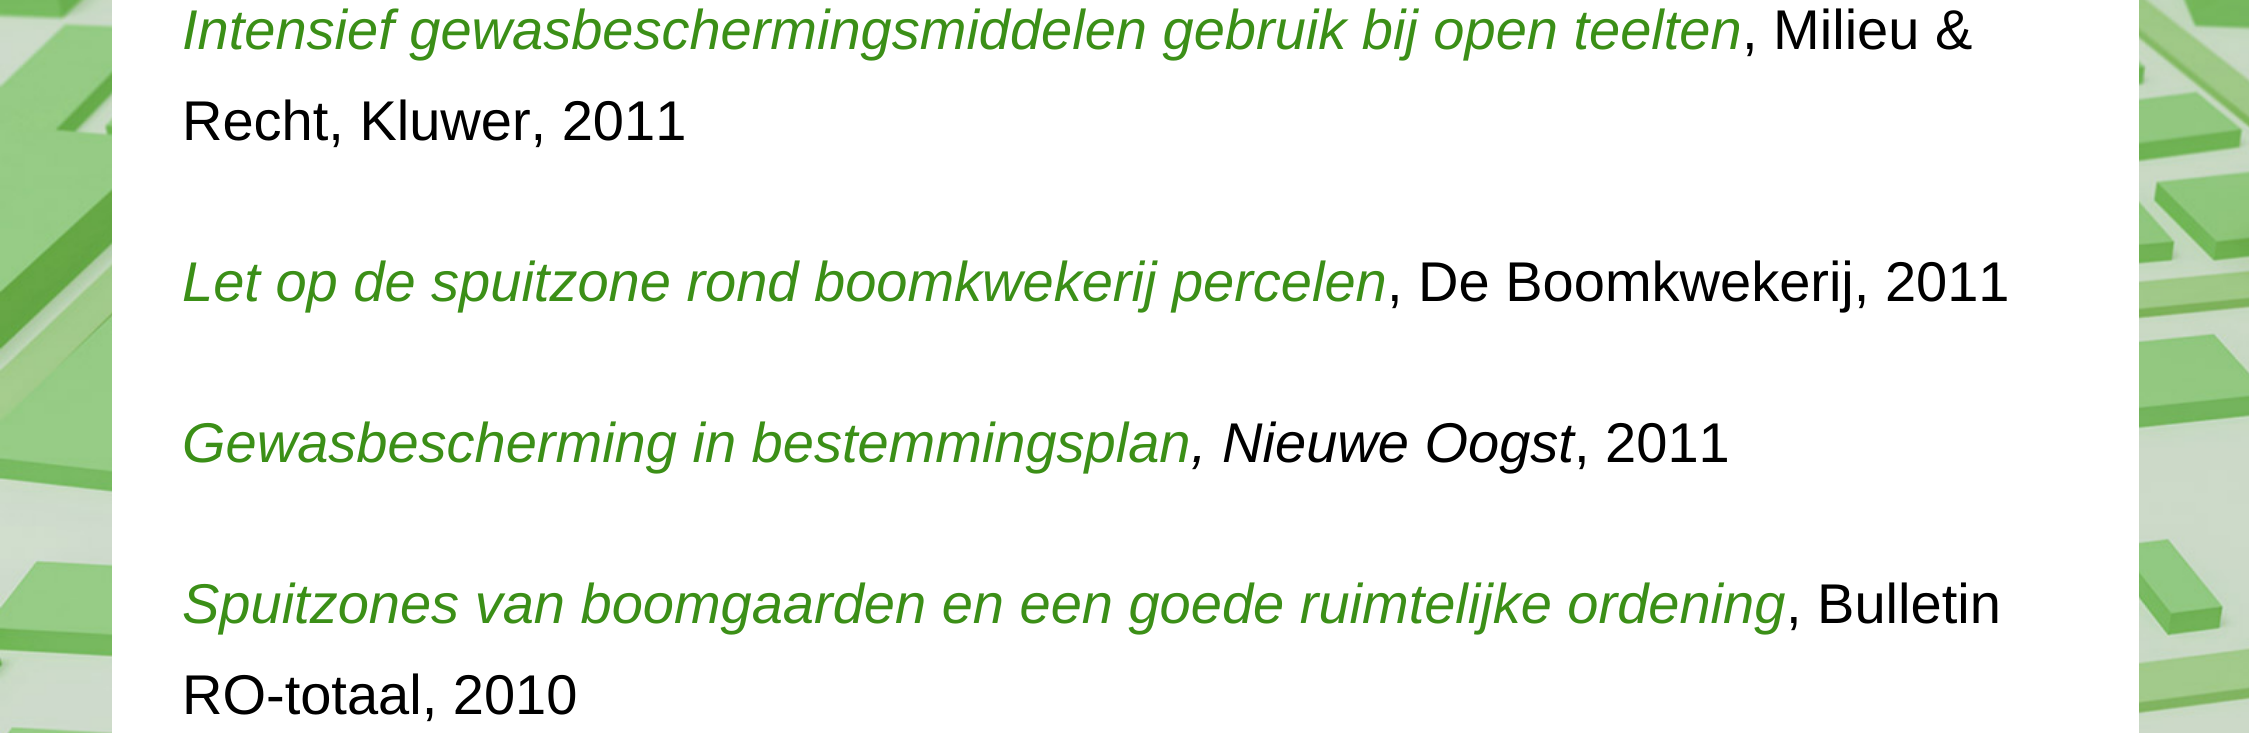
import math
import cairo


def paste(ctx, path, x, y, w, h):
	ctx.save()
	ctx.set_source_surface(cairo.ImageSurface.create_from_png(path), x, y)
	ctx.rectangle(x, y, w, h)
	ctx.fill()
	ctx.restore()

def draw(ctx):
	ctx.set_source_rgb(1, 1, 1)
	ctx.paint()
	paste(ctx, 'media/1.png', 0, 0, 2249, 733)
	ctx.set_source_rgb(1, 1, 1)
	ctx.rectangle(112, 0, 2027, 733)
	ctx.fill()
	ctx.select_font_face('Liberation Sans', cairo.FONT_SLANT_ITALIC)
	ctx.set_font_size(56)
	ctx.set_source_rgb(0.231, 0.561, 0.09)
	ctx.move_to(182, 49)
	ctx.show_text('Intensief gewasbeschermingsmiddelen gebruik bij open teelten')
	ctx.select_font_face('Liberation Sans')
	ctx.set_source_rgb(0, 0, 0)
	ctx.move_to(1742, 49)
	ctx.show_text(', Milieu &')
	ctx.move_to(182, 140)
	ctx.show_text('Recht, Kluwer, 2011')
	ctx.select_font_face('Liberation Sans', cairo.FONT_SLANT_ITALIC)
	ctx.set_source_rgb(0.231, 0.561, 0.09)
	ctx.move_to(182, 301)
	ctx.show_text('Let op de spuitzone rond boomkwekerij percelen')
	ctx.select_font_face('Liberation Sans')
	ctx.set_source_rgb(0, 0, 0)
	ctx.move_to(1387, 301)
	ctx.show_text(', De Boomkwekerij, 2011')
	ctx.select_font_face('Liberation Sans', cairo.FONT_SLANT_ITALIC)
	ctx.set_source_rgb(0.231, 0.561, 0.09)
	ctx.move_to(182, 462)
	ctx.show_text('Gewasbescherming in bestemmingsplan')
	ctx.set_source_rgb(0, 0, 0)
	ctx.move_to(1191, 462)
	ctx.show_text(', Nieuwe Oogst')
	ctx.select_font_face('Liberation Sans')
	ctx.move_to(1574, 462)
	ctx.show_text(', 2011')
	ctx.select_font_face('Liberation Sans', cairo.FONT_SLANT_ITALIC)
	ctx.set_source_rgb(0.231, 0.561, 0.09)
	ctx.move_to(182, 623)
	ctx.show_text('Spuitzones van boomgaarden en een goede ruimtelijke ordening')
	ctx.select_font_face('Liberation Sans')
	ctx.set_source_rgb(0, 0, 0)
	ctx.move_to(1786, 623)
	ctx.show_text(', Bulletin')
	ctx.move_to(182, 714)
	ctx.show_text('RO-totaal, 2010')


surface = cairo.ImageSurface(cairo.FORMAT_RGB24, 2249, 733)
ctx = cairo.Context(surface)
options = cairo.FontOptions()
options.set_hint_metrics(cairo.HINT_METRICS_OFF)
options.set_hint_style(cairo.HINT_STYLE_NONE)
ctx.set_font_options(options)
ctx.set_miter_limit(4)
draw(ctx)
surface.write_to_png('image.png')
